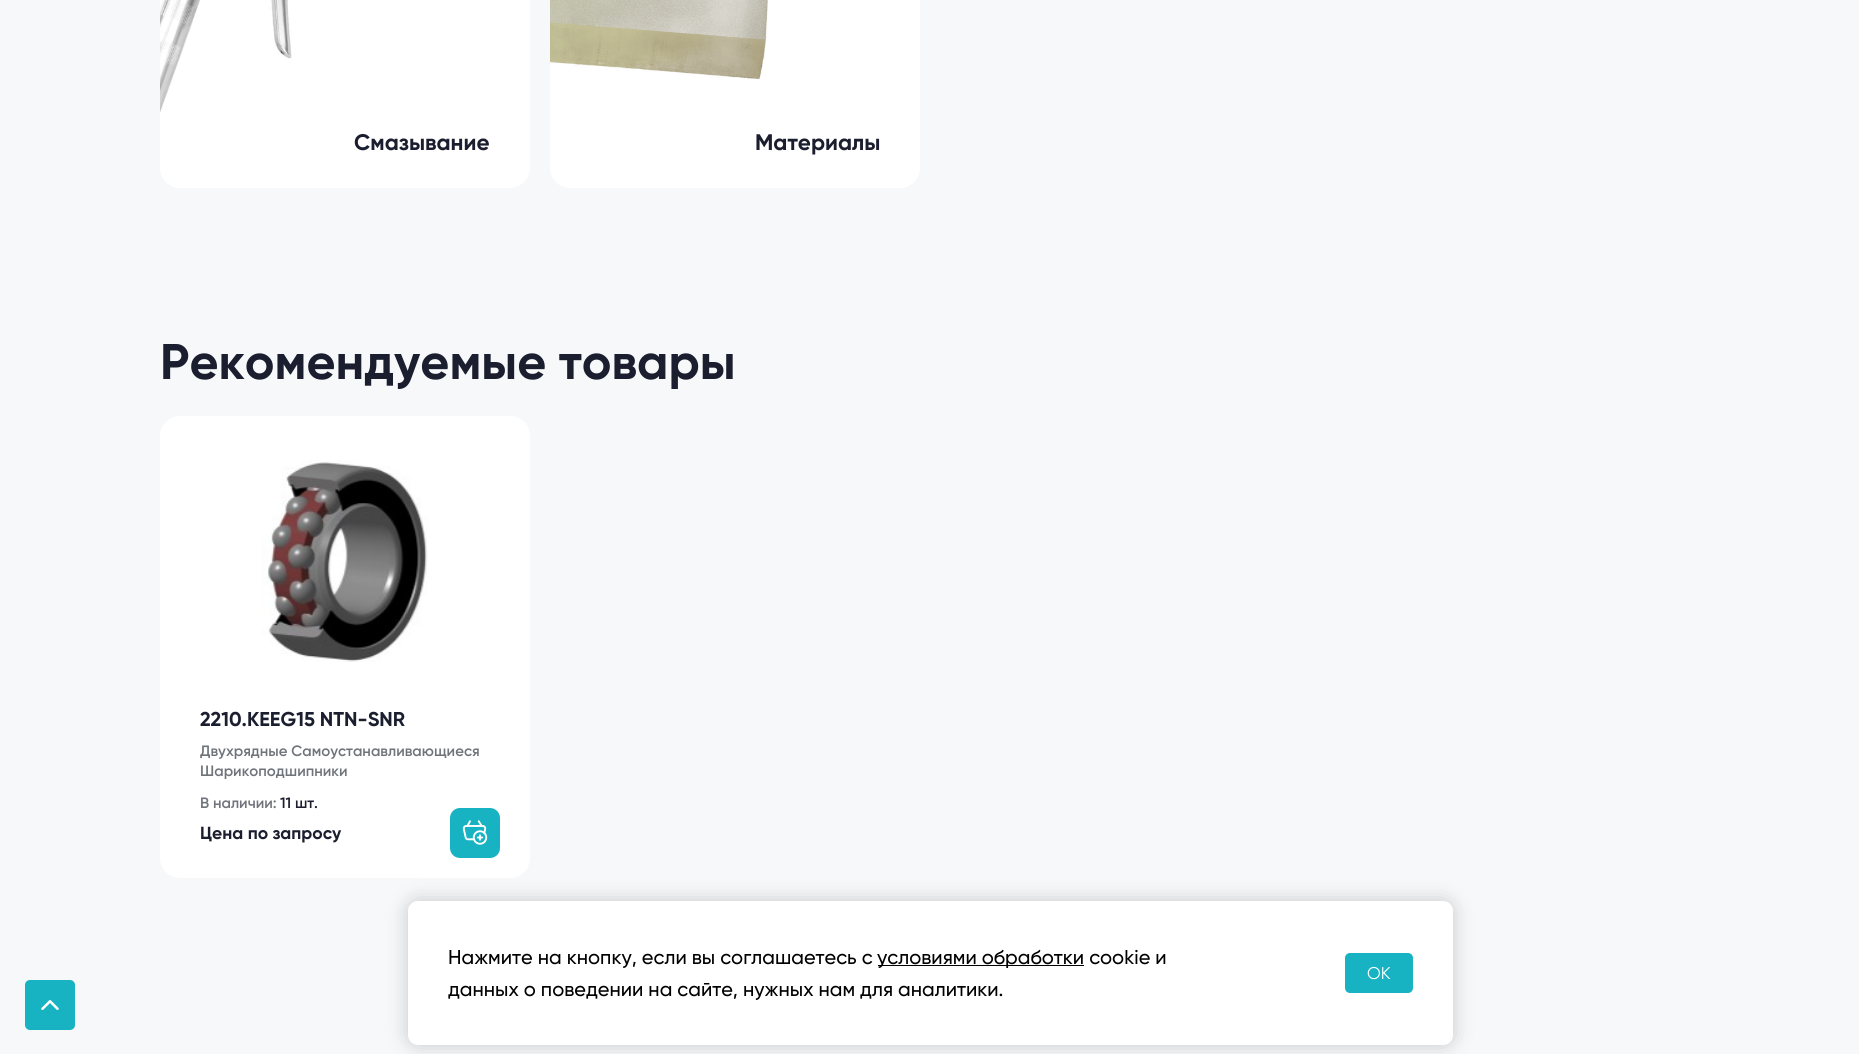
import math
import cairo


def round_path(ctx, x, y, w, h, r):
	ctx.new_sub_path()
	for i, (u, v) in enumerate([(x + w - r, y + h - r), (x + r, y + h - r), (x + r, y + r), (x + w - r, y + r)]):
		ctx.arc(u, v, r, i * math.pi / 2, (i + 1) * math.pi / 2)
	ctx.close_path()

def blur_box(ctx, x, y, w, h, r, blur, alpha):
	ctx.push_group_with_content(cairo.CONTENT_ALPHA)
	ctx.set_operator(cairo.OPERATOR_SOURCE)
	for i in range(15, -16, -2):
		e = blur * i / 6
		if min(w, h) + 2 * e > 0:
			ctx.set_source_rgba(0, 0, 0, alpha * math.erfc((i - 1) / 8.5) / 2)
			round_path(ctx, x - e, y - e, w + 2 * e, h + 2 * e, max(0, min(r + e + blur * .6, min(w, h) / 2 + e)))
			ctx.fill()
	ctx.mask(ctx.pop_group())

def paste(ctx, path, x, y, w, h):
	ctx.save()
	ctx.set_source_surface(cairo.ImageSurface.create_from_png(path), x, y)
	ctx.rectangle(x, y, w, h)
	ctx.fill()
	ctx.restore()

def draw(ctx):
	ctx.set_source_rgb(0.961, 0.969, 0.98)
	ctx.paint()
	ctx.set_source_rgb(1, 1, 1)
	round_path(ctx, 160, -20, 370, 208, 20)
	ctx.fill()
	paste(ctx, 'media/1.png', 160, 0, 132, 113)
	ctx.select_font_face('Gilroy', cairo.FONT_SLANT_NORMAL, cairo.FONT_WEIGHT_BOLD)
	ctx.set_font_size(22.5)
	ctx.set_source_rgb(0.106, 0.118, 0.18)
	ctx.move_to(354, 150)
	ctx.show_text('Смазывание')
	ctx.set_source_rgb(1, 1, 1)
	round_path(ctx, 550, -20, 370, 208, 20)
	ctx.fill()
	paste(ctx, 'media/2.png', 550, 0, 218, 80)
	ctx.set_source_rgb(0.106, 0.118, 0.18)
	ctx.move_to(755, 150)
	ctx.show_text('Материалы')
	ctx.set_font_size(50)
	ctx.move_to(160, 379)
	ctx.show_text('Рекомендуемые товары')
	ctx.set_source_rgb(1, 1, 1)
	round_path(ctx, 160, 416, 370, 462, 20)
	ctx.fill()
	paste(ctx, 'media/3.png', 261, 460, 167, 202)
	ctx.set_font_size(20)
	ctx.set_source_rgb(0.106, 0.118, 0.18)
	ctx.move_to(200, 726)
	ctx.show_text('2210.KEEG15 NTN-SNR')
	ctx.select_font_face('Gilroy SemiBold')
	ctx.set_font_size(15)
	ctx.set_source_rgb(0.435, 0.455, 0.482)
	for x, y, s in [
		(200, 756, 'Двухрядные Самоустанавливающиеся'),
		(200, 776, 'Шарикоподшипники'),
		(200, 808, 'В наличии:'),
	]:
		ctx.move_to(x, y)
		ctx.show_text(s)
	ctx.set_source_rgb(0.106, 0.118, 0.18)
	ctx.move_to(280, 808)
	ctx.show_text('11 шт.')
	ctx.select_font_face('Gilroy', cairo.FONT_SLANT_NORMAL, cairo.FONT_WEIGHT_BOLD)
	ctx.set_font_size(17.5)
	ctx.move_to(200, 839)
	ctx.show_text('Цена по запросу')
	ctx.set_source_rgb(0.09, 0.702, 0.761)
	round_path(ctx, 450, 808, 50, 50, 10)
	ctx.fill()
	paste(ctx, 'media/4.png', 462, 820, 26, 25)
	ctx.set_source_rgb(0, 0, 0)
	blur_box(ctx, 408, 901, 1045, 144, 10, 10, 0.2)
	ctx.set_source_rgb(1, 1, 1)
	round_path(ctx, 408, 901, 1045, 144, 10)
	ctx.fill()
	ctx.select_font_face('Gilroy Medium')
	ctx.set_font_size(20)
	ctx.set_source_rgb(0, 0, 0)
	ctx.move_to(448, 964)
	ctx.show_text('Нажмите на кнопку, если вы соглашаетесь с')
	ctx.rectangle(878, 965, 206, 1)
	ctx.fill()
	ctx.move_to(877, 964)
	ctx.show_text('условиями обработки cookie и')
	ctx.move_to(448, 996)
	ctx.show_text('данных о поведении на сайте, нужных нам для аналитики.')
	ctx.set_source_rgb(0.09, 0.702, 0.761)
	round_path(ctx, 1345, 953, 68, 40, 5)
	ctx.fill()
	ctx.select_font_face('Gilroy')
	ctx.set_font_size(17)
	ctx.set_source_rgb(1, 1, 1)
	ctx.move_to(1367, 979)
	ctx.show_text('OK')
	ctx.set_source_rgb(0.09, 0.702, 0.761)
	round_path(ctx, 25, 980, 50, 50, 5)
	ctx.fill()
	paste(ctx, 'media/5.png', 41, 1000, 18, 10)


surface = cairo.ImageSurface(cairo.FORMAT_RGB24, 1859, 1054)
ctx = cairo.Context(surface)
options = cairo.FontOptions()
options.set_hint_metrics(cairo.HINT_METRICS_OFF)
options.set_hint_style(cairo.HINT_STYLE_NONE)
ctx.set_font_options(options)
ctx.set_miter_limit(4)
draw(ctx)
surface.write_to_png('image.png')
